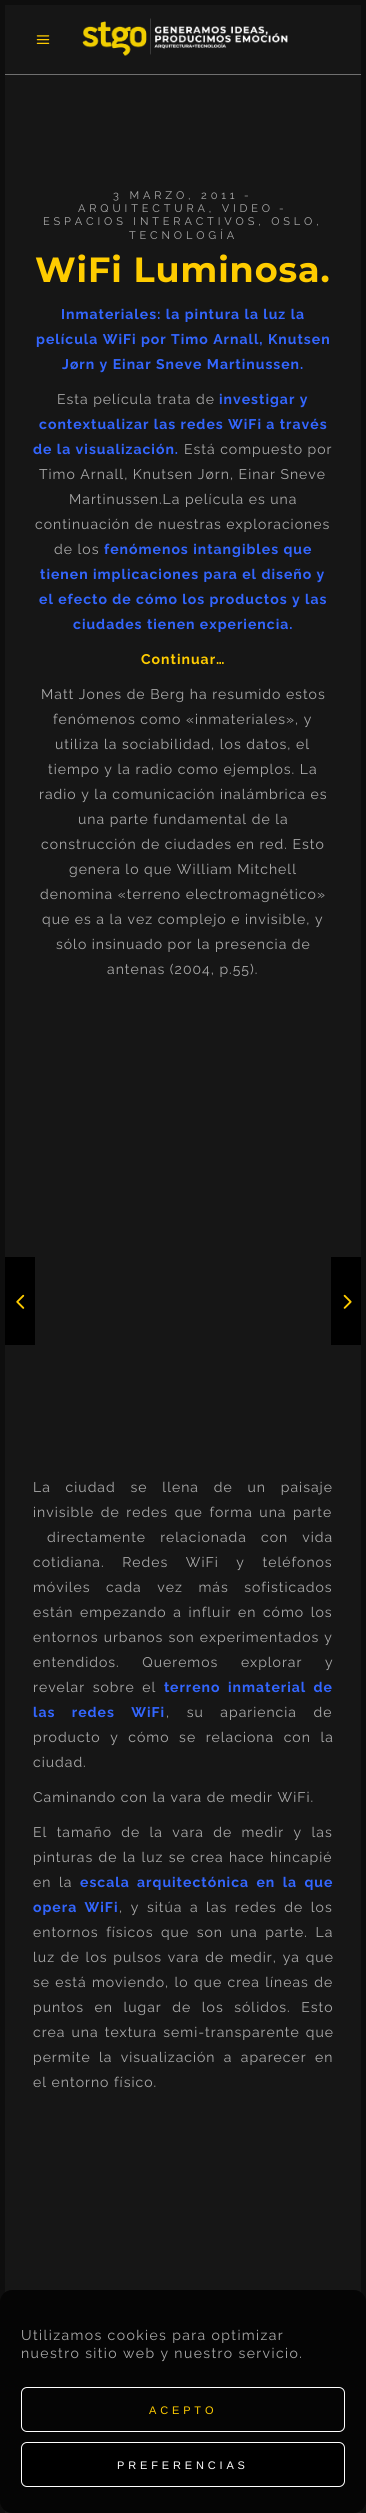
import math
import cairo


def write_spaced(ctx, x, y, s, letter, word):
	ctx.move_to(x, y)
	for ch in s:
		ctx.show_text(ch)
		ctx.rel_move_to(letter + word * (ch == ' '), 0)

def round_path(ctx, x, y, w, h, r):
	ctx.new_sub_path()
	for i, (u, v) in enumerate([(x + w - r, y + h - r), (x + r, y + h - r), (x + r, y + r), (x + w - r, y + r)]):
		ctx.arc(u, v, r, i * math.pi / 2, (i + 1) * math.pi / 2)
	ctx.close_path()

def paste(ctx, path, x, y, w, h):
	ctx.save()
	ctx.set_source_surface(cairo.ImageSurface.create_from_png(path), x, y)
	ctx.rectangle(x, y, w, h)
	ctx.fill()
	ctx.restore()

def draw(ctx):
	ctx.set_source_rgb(0.055, 0.055, 0.055)
	ctx.paint()
	ctx.set_source_rgb(0.086, 0.086, 0.086)
	ctx.rectangle(5, 5, 356, 69)
	ctx.fill()
	ctx.set_source_rgb(0.439, 0.439, 0.439)
	ctx.rectangle(5, 74, 356, 1)
	ctx.fill()
	paste(ctx, 'media/1.png', 36, 35, 14, 9)
	paste(ctx, 'media/2.png', 82, 18, 206, 38)
	ctx.set_source_rgb(0.086, 0.086, 0.086)
	ctx.rectangle(5, 75, 356, 2438)
	ctx.fill()
	ctx.select_font_face('Raleway')
	ctx.set_font_size(11)
	ctx.set_source_rgb(0.667, 0.667, 0.667)
	for x, y, s in [
		(113, 199, '3 MARZO, 2011'),
		(244, 199, '-'),
		(78, 212, 'ARQUITECTURA, VIDEO'),
		(279, 212, '-'),
		(43, 225, 'ESPACIOS INTERACTIVOS, OSLO,'),
		(129, 239, 'TECNOLOGÍA'),
	]:
		write_spaced(ctx, x, y, s, 3.85, 0)
	ctx.select_font_face('Montserrat', cairo.FONT_SLANT_NORMAL, cairo.FONT_WEIGHT_BOLD)
	ctx.set_font_size(35)
	ctx.set_source_rgb(1, 0.8, 0)
	write_spaced(ctx, 35, 282, 'WiFi Luminosa.', 0.9, 0)
	ctx.select_font_face('Raleway', cairo.FONT_SLANT_NORMAL, cairo.FONT_WEIGHT_BOLD)
	ctx.set_font_size(14)
	ctx.set_source_rgb(0.2, 0.4, 1)
	for x, y, s in [
		(61, 319, 'Inmateriales: la pintura la luz la'),
		(36, 344, 'película WiFi por Timo Arnall, Knutsen'),
		(62, 369, 'Jørn y Einar Sneve Martinussen.'),
	]:
		write_spaced(ctx, x, y, s, 1, 0)
	ctx.select_font_face('Raleway')
	ctx.set_source_rgb(0.667, 0.667, 0.667)
	write_spaced(ctx, 57, 404, 'Esta película trata de', 1, 0)
	ctx.select_font_face('Raleway', cairo.FONT_SLANT_NORMAL, cairo.FONT_WEIGHT_BOLD)
	ctx.set_source_rgb(0.2, 0.4, 1)
	for x, y, s in [
		(219, 404, 'investigar y'),
		(39, 429, 'contextualizar las redes WiFi a través'),
		(33, 454, 'de la visualización.'),
	]:
		write_spaced(ctx, x, y, s, 1, 0)
	ctx.select_font_face('Raleway')
	ctx.set_source_rgb(0.667, 0.667, 0.667)
	for x, y, s in [
		(184, 454, 'Está compuesto por'),
		(39, 479, 'Timo Arnall, Knutsen Jørn, Einar Sneve'),
		(69, 504, 'Martinussen.La película es una'),
		(35, 529, 'continuación de nuestras exploraciones'),
		(54, 554, 'de los'),
	]:
		write_spaced(ctx, x, y, s, 1, 0)
	ctx.select_font_face('Raleway', cairo.FONT_SLANT_NORMAL, cairo.FONT_WEIGHT_BOLD)
	ctx.set_source_rgb(0.2, 0.4, 1)
	for x, y, s in [
		(104, 554, 'fenómenos intangibles que'),
		(40, 579, 'tienen implicaciones para el diseño y'),
		(39, 604, 'el efecto de cómo los productos y las'),
		(73, 629, 'ciudades tienen experiencia.'),
	]:
		write_spaced(ctx, x, y, s, 1, 0)
	ctx.set_source_rgb(1, 0.8, 0)
	write_spaced(ctx, 141, 664, 'Continuar…', 1, 0)
	ctx.select_font_face('Raleway')
	ctx.set_source_rgb(0.667, 0.667, 0.667)
	for x, y, s in [
		(41, 699, 'Matt Jones de Berg ha resumido estos'),
		(53, 724, 'fenómenos como «inmateriales», y'),
		(55, 749, 'utiliza la sociabilidad, los datos, el'),
		(48, 774, 'tiempo y la radio como ejemplos. La'),
		(39, 799, 'radio y la comunicación inalámbrica es'),
		(78, 824, 'una parte fundamental de la'),
		(41, 849, 'construcción de ciudades en red. Esto'),
		(69, 874, 'genera lo que William Mitchell'),
		(40, 899, 'denomina «terreno electromagnético»'),
		(42, 924, 'que es a la vez complejo e invisible, y'),
		(56, 949, 'sólo insinuado por la presencia de'),
		(107, 974, 'antenas (2004, p.55).'),
	]:
		write_spaced(ctx, x, y, s, 1, 0)
	write_spaced(ctx, 33, 1492, 'La ciudad se llena de un paisaje', 1, 10.25)
	write_spaced(ctx, 33, 1517, 'invisible de redes que forma una parte', 1, 2)
	write_spaced(ctx, 47, 1542, 'directamente relacionada con vida', 1, 9.5)
	write_spaced(ctx, 33, 1567, 'cotidiana. Redes WiFi y teléfonos', 1, 13)
	write_spaced(ctx, 33, 1592, 'móviles cada vez más sofisticados', 1, 11)
	write_spaced(ctx, 33, 1617, 'están empezando a influir en cómo los', 1, 2)
	write_spaced(ctx, 33, 1642, 'entornos urbanos son experimentados y', 1, 0.5)
	write_spaced(ctx, 33, 1667, 'entendidos. Queremos explorar y', 1, 18)
	write_spaced(ctx, 33, 1692, 'revelar sobre el', 1, 3)
	ctx.select_font_face('Raleway', cairo.FONT_SLANT_NORMAL, cairo.FONT_WEIGHT_BOLD)
	ctx.set_source_rgb(0.2, 0.4, 1)
	write_spaced(ctx, 164, 1692, 't', 1, 0)
	write_spaced(ctx, 170, 1692, 'erreno inmaterial de', 1, 3)
	write_spaced(ctx, 33, 1717, 'las redes WiFi', 1, 12)
	ctx.select_font_face('Raleway')
	ctx.set_source_rgb(0.667, 0.667, 0.667)
	write_spaced(ctx, 166, 1717, ', su apariencia de', 1, 12)
	write_spaced(ctx, 33, 1742, 'producto y cómo se relaciona con la', 1, 5)
	write_spaced(ctx, 33, 1767, 'ciudad.', 1, 0)
	write_spaced(ctx, 33, 1802, 'Caminando con la vara de medir WiFi.', 1, 0)
	write_spaced(ctx, 33, 1837, 'El tamaño de la vara de medir y las', 1, 4.75)
	write_spaced(ctx, 33, 1862, 'pinturas de la luz se crea hace hincapié', 1, 0.75)
	write_spaced(ctx, 33, 1887, 'en la', 1, 3)
	ctx.select_font_face('Raleway', cairo.FONT_SLANT_NORMAL, cairo.FONT_WEIGHT_BOLD)
	ctx.set_source_rgb(0.2, 0.4, 1)
	write_spaced(ctx, 80, 1887, 'escala arquitectónica en la que', 1, 3)
	write_spaced(ctx, 33, 1912, 'opera WiFi', 1, 3)
	ctx.select_font_face('Raleway')
	ctx.set_source_rgb(0.667, 0.667, 0.667)
	write_spaced(ctx, 119, 1912, ', y sitúa a las redes de los', 1, 3)
	write_spaced(ctx, 33, 1937, 'entornos físicos que son una parte. La', 1, 3)
	write_spaced(ctx, 33, 1962, 'luz de los pulsos vara de medir, ya que', 1, 1.25)
	write_spaced(ctx, 33, 1987, 'se está moviendo, lo que crea líneas de', 1, 0.75)
	write_spaced(ctx, 33, 2012, 'puntos en lugar de los sólidos. Esto', 1, 6)
	write_spaced(ctx, 33, 2037, 'crea una textura semi-transparente que', 1, 1.5)
	write_spaced(ctx, 33, 2062, 'permite la visualización a aparecer en', 1, 3.75)
	write_spaced(ctx, 33, 2087, 'el entorno físico.', 1, 0)
	ctx.set_source_rgb(0, 0, 0)
	ctx.rectangle(5, 1257, 30, 88)
	ctx.fill()
	paste(ctx, 'media/3.png', 16, 1294, 9, 15)
	ctx.rectangle(331, 1257, 30, 88)
	ctx.fill()
	paste(ctx, 'media/4.png', 343, 1294, 9, 15)
	ctx.set_source_rgb(0.02, 0.02, 0.02)
	round_path(ctx, 0.5, 2290.5, 365, 222, 11.5)
	ctx.fill_preserve()
	ctx.set_line_width(1)
	ctx.stroke()
	ctx.set_source_rgb(0.667, 0.667, 0.667)
	write_spaced(ctx, 21, 2340, 'Utilizamos cookies para optimizar', 1.4, 0)
	write_spaced(ctx, 21, 2358, 'nuestro sitio web y nuestro servicio.', 1.4, 0)
	round_path(ctx, 21.5, 2387.5, 323, 44, 5.5)
	ctx.set_source_rgb(1, 1, 1)
	ctx.stroke()
	ctx.select_font_face('Liberation Sans')
	ctx.set_font_size(11)
	ctx.set_source_rgb(1, 0.8, 0)
	write_spaced(ctx, 149, 2414, 'ACEPTO', 3.85, 0)
	ctx.set_source_rgb(0, 0, 0)
	round_path(ctx, 21.5, 2442.5, 323, 44, 5.5)
	ctx.fill_preserve()
	ctx.set_source_rgb(1, 1, 1)
	ctx.stroke()
	write_spaced(ctx, 117, 2469, 'PREFERENCIAS', 3.85, 0)


surface = cairo.ImageSurface(cairo.FORMAT_RGB24, 366, 2513)
ctx = cairo.Context(surface)
options = cairo.FontOptions()
options.set_hint_metrics(cairo.HINT_METRICS_OFF)
options.set_hint_style(cairo.HINT_STYLE_NONE)
ctx.set_font_options(options)
ctx.set_miter_limit(4)
draw(ctx)
surface.write_to_png('image.png')
